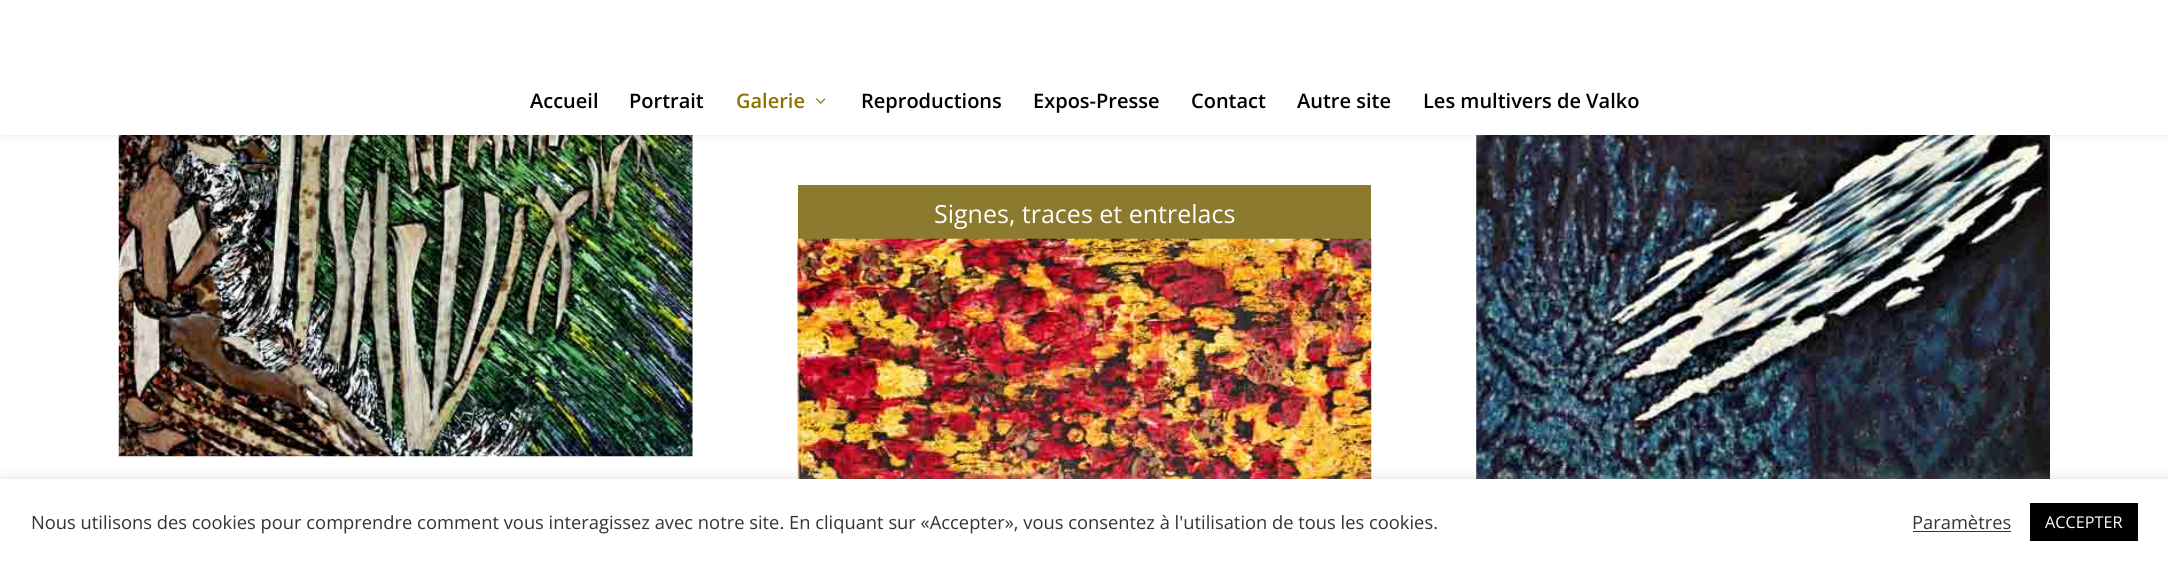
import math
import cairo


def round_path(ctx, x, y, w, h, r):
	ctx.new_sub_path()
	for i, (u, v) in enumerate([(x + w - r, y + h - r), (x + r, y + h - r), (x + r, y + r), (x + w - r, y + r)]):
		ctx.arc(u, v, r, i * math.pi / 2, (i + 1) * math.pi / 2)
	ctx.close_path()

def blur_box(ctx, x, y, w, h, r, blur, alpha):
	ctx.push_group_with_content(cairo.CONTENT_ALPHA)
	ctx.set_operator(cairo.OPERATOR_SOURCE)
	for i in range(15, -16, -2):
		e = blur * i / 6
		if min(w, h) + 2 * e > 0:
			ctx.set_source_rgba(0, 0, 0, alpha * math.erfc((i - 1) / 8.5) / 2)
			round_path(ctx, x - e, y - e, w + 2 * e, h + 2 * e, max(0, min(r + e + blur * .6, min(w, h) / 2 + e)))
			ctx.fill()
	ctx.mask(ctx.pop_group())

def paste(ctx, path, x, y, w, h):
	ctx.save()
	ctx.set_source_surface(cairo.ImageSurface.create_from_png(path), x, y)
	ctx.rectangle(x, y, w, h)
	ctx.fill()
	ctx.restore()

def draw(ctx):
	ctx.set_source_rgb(1, 1, 1)
	ctx.paint()
	paste(ctx, 'media/2.png', 118, 135, 575, 322)
	paste(ctx, 'media/4.png', 1476, 135, 574, 344)
	ctx.set_source_rgb(0, 0, 0)
	blur_box(ctx, 0, 0, 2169, 135, 0, 4.5, 0.1)
	ctx.set_source_rgb(1, 1, 1)
	ctx.rectangle(0, 0, 2168, 135)
	ctx.fill()
	ctx.select_font_face('Open Sans SemiBold')
	ctx.set_font_size(20)
	ctx.set_source_rgb(0, 0, 0)
	ctx.move_to(530, 108)
	ctx.show_text('Accueil')
	ctx.move_to(629, 108)
	ctx.show_text('Portrait')
	ctx.set_source_rgb(0.549, 0.447, 0)
	ctx.move_to(736, 108)
	ctx.show_text('Galerie')
	paste(ctx, 'media/1.png', 816, 98, 10, 6)
	ctx.set_source_rgb(0, 0, 0)
	for x, y, s in [
		(861, 108, 'Reproductions'),
		(1033, 108, 'Expos-Presse'),
		(1191, 108, 'Contact'),
		(1297, 108, 'Autre site'),
		(1423, 108, 'Les multivers de Valko'),
	]:
		ctx.move_to(x, y)
		ctx.show_text(s)
	ctx.set_source_rgb(0.549, 0.482, 0.18)
	ctx.rectangle(798, 185, 573, 54)
	ctx.fill()
	ctx.select_font_face('Open Sans')
	ctx.set_font_size(25)
	ctx.set_source_rgb(1, 1, 1)
	ctx.move_to(934, 223)
	ctx.show_text('Signes, traces et entrelacs')
	paste(ctx, 'media/3.png', 797, 238, 575, 241)
	ctx.set_source_rgb(0.675, 0.671, 0.671)
	blur_box(ctx, 0, 478, 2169, 86, 0, 6, 0.3)
	ctx.set_source_rgb(1, 1, 1)
	ctx.rectangle(0, 479, 2168, 86)
	ctx.fill()
	ctx.set_font_size(18.33)
	ctx.set_source_rgb(0.2, 0.2, 0.2)
	ctx.move_to(31, 529)
	ctx.show_text('Nous utilisons des cookies pour comprendre comment vous interagissez avec notre site. En cliquant sur «Accepter», vous consentez à l\'utilisation de tous les cookies.')
	ctx.move_to(1912, 529)
	ctx.show_text('Paramètres')
	ctx.rectangle(1913, 531, 98, 1)
	ctx.fill()
	ctx.set_source_rgb(0, 0, 0)
	ctx.rectangle(2030, 503, 108, 38)
	ctx.fill()
	ctx.set_font_size(16.25)
	ctx.set_source_rgb(1, 1, 1)
	ctx.move_to(2045, 528)
	ctx.show_text('ACCEPTER')


surface = cairo.ImageSurface(cairo.FORMAT_RGB24, 2168, 565)
ctx = cairo.Context(surface)
options = cairo.FontOptions()
options.set_hint_metrics(cairo.HINT_METRICS_OFF)
options.set_hint_style(cairo.HINT_STYLE_NONE)
ctx.set_font_options(options)
ctx.set_miter_limit(4)
draw(ctx)
surface.write_to_png('image.png')
